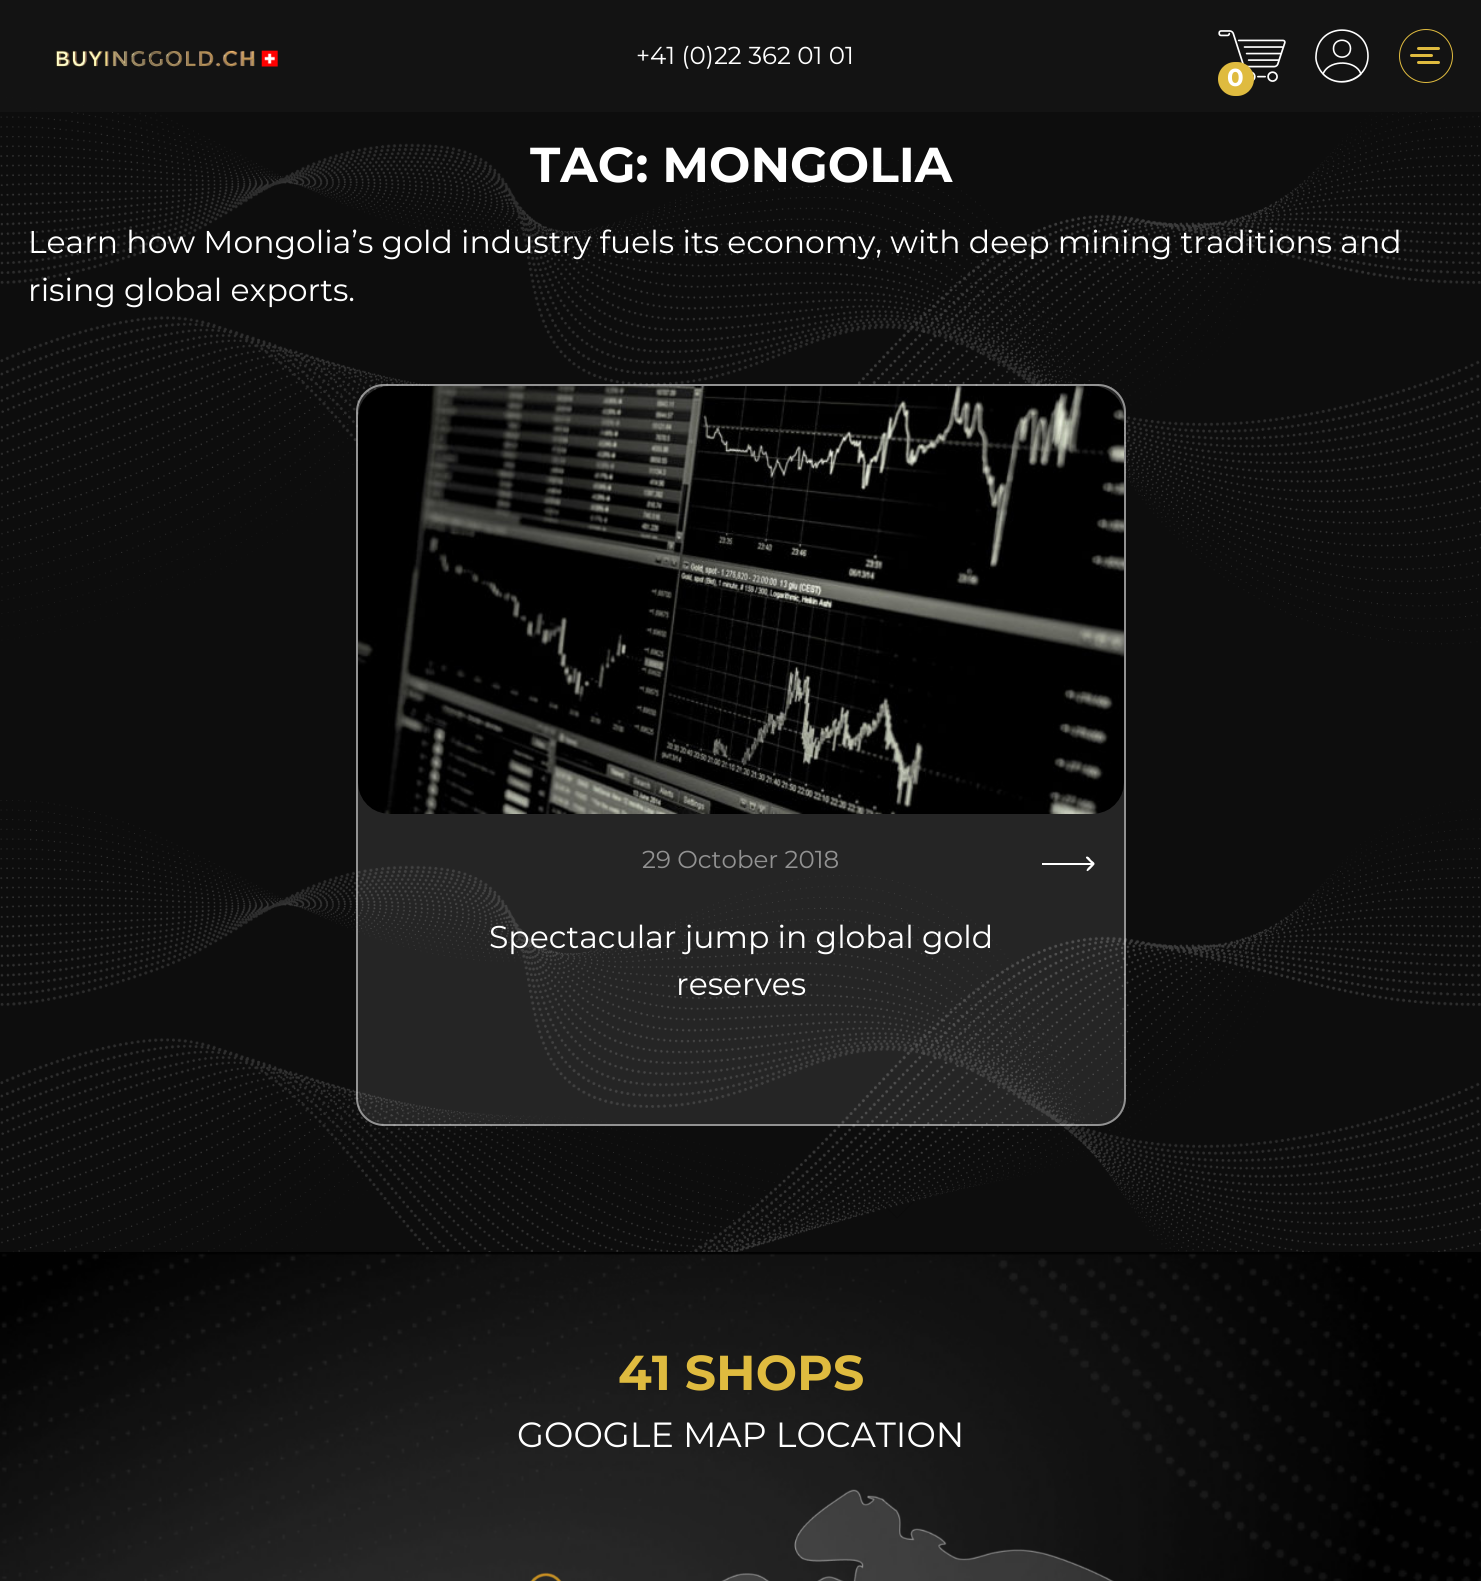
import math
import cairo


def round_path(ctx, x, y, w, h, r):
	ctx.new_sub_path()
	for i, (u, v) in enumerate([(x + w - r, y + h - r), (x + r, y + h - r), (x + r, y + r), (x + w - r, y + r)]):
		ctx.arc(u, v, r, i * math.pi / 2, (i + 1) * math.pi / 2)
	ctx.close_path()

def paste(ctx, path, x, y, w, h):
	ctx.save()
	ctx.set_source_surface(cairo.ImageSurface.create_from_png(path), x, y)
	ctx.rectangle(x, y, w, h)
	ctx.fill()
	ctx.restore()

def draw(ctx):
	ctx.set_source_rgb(0.051, 0.051, 0.051)
	ctx.paint()
	paste(ctx, 'media/1.png', 0, 78, 1481, 1503)
	ctx.set_source_rgba(0.078, 0.078, 0.078, 0.95)
	ctx.rectangle(0, 0, 1481, 112)
	ctx.fill()
	paste(ctx, 'media/2.png', 55, 50, 223, 17)
	ctx.select_font_face('Montserrat')
	ctx.set_font_size(24.5)
	ctx.set_source_rgb(1, 1, 1)
	ctx.move_to(636, 64)
	ctx.show_text('+41 (0)22 362 01 01')
	paste(ctx, 'media/3.png', 1218, 30, 68, 52)
	ctx.set_source_rgb(0.875, 0.733, 0.247)
	round_path(ctx, 1218, 62, 36, 34, 17)
	ctx.fill()
	ctx.select_font_face('Montserrat', cairo.FONT_SLANT_NORMAL, cairo.FONT_WEIGHT_BOLD)
	ctx.set_source_rgb(1, 1, 1)
	ctx.move_to(1227, 86)
	ctx.show_text('0')
	ctx.new_path()
	ctx.move_to(1350.5, 48.5)
	ctx.curve_to(1350.5, 60, 1333.5, 60, 1333.5, 48.5)
	ctx.curve_to(1333.5, 37.5, 1350.5, 37.5, 1350.5, 48.5)
	ctx.close_path()
	ctx.move_to(1361, 74)
	ctx.curve_to(1350.5, 84.5, 1333, 84.5, 1323, 74)
	ctx.curve_to(1328, 60.5, 1352, 59.5, 1359.5, 71)
	ctx.close_path()
	ctx.move_to(1368, 56)
	ctx.curve_to(1368, 81.5, 1334, 91.5, 1320, 70)
	ctx.curve_to(1317.5, 66, 1315.5, 60.5, 1316, 56)
	ctx.curve_to(1317.5, 20.5, 1368, 22.5, 1368, 56)
	ctx.close_path()
	ctx.set_line_width(1.6)
	ctx.set_line_cap(cairo.LINE_CAP_ROUND)
	ctx.set_line_join(cairo.LINE_JOIN_ROUND)
	ctx.stroke()
	ctx.arc(1426, 56, 26.5, 0, 2 * math.pi)
	ctx.set_source_rgb(0.875, 0.733, 0.247)
	ctx.set_line_width(1)
	ctx.set_line_cap(cairo.LINE_CAP_BUTT)
	ctx.set_line_join(cairo.LINE_JOIN_MITER)
	ctx.stroke()
	round_path(ctx, 1417, 47, 23, 3, 1.5)
	ctx.fill()
	round_path(ctx, 1410, 54, 23, 3, 1.5)
	ctx.fill()
	round_path(ctx, 1417, 61, 23, 3, 1.5)
	ctx.fill()
	ctx.set_font_size(49)
	ctx.set_source_rgb(1, 1, 1)
	ctx.move_to(530, 182)
	ctx.show_text('TAG: MONGOLIA')
	ctx.select_font_face('Montserrat')
	ctx.set_font_size(31.5)
	ctx.move_to(28, 253)
	ctx.show_text('Learn how Mongolia’s gold industry fuels its economy, with deep mining traditions and')
	ctx.move_to(28, 301)
	ctx.show_text('rising global exports.')
	ctx.set_source_rgba(1, 1, 1, 0.1)
	round_path(ctx, 356, 384, 770, 742, 28)
	ctx.fill()
	round_path(ctx, 357, 385, 768, 740, 27)
	ctx.set_source_rgba(1, 1, 1, 0.5)
	ctx.set_line_width(2)
	ctx.stroke()
	paste(ctx, 'media/4.png', 358, 386, 766, 428)
	ctx.set_font_size(24.5)
	ctx.set_source_rgb(0.573, 0.573, 0.573)
	ctx.move_to(642, 868)
	ctx.show_text('29 October 2018')
	ctx.set_source_rgb(1, 1, 1)
	ctx.new_path()
	ctx.move_to(1094, 865)
	ctx.curve_to(1096, 863, 1092, 861, 1091, 860)
	ctx.curve_to(1091, 860, 1088, 855, 1086, 857)
	ctx.line_to(1086, 858)
	ctx.line_to(1092, 864)
	ctx.curve_to(1091, 865, 1085, 870, 1087, 871)
	ctx.curve_to(1088, 872, 1093, 866, 1094, 865)
	ctx.close_path()
	ctx.move_to(1042, 865)
	ctx.line_to(1094, 865)
	ctx.line_to(1094, 863)
	ctx.line_to(1042, 863)
	ctx.close_path()
	ctx.fill()
	ctx.set_font_size(31.5)
	ctx.move_to(489, 948)
	ctx.show_text('Spectacular jump in global gold')
	ctx.move_to(676, 995)
	ctx.show_text('reserves')
	ctx.set_source_rgba(0, 0, 0, 0.95)
	ctx.rectangle(0, 1252, 1481, 329)
	ctx.fill()
	paste(ctx, 'media/5.png', 0, 1253, 1481, 328)
	ctx.select_font_face('Montserrat', cairo.FONT_SLANT_NORMAL, cairo.FONT_WEIGHT_BOLD)
	ctx.set_font_size(49)
	ctx.set_source_rgb(0.875, 0.733, 0.247)
	ctx.move_to(618, 1390)
	ctx.show_text('41 SHOPS')
	ctx.select_font_face('Montserrat')
	ctx.set_font_size(35)
	ctx.set_source_rgb(1, 1, 1)
	ctx.move_to(517, 1447)
	ctx.show_text('GOOGLE MAP LOCATION')
	paste(ctx, 'media/6.png', 530, 1489, 584, 92)


surface = cairo.ImageSurface(cairo.FORMAT_RGB24, 1481, 1581)
ctx = cairo.Context(surface)
options = cairo.FontOptions()
options.set_hint_metrics(cairo.HINT_METRICS_OFF)
options.set_hint_style(cairo.HINT_STYLE_NONE)
ctx.set_font_options(options)
ctx.set_miter_limit(4)
draw(ctx)
surface.write_to_png('image.png')
